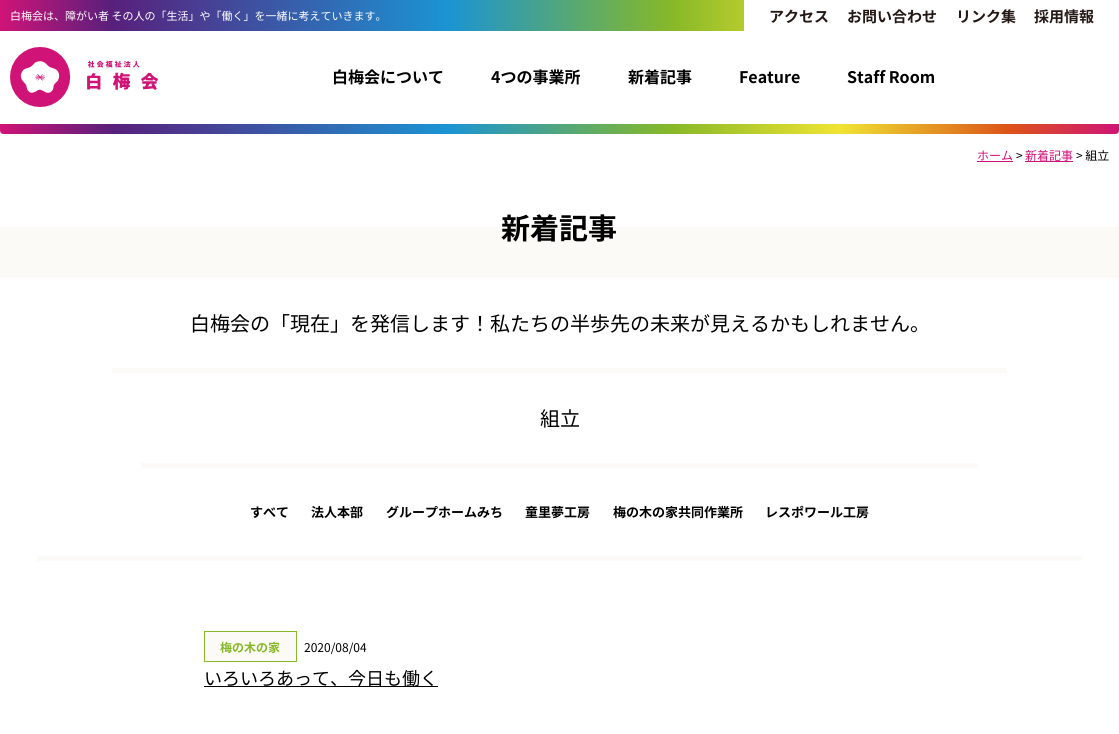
import math
import cairo


def paste(ctx, path, x, y, w, h):
	ctx.save()
	ctx.set_source_surface(cairo.ImageSurface.create_from_png(path), x, y)
	ctx.rectangle(x, y, w, h)
	ctx.fill()
	ctx.restore()

def draw(ctx):
	ctx.set_source_rgb(1, 1, 1)
	ctx.paint()
	gradient = cairo.LinearGradient(0, 16, 1119, 16)
	gradient.add_color_stop_rgba(0, 0.816, 0.075, 0.467, 1)
	gradient.add_color_stop_rgba(0.1, 0.345, 0.125, 0.486, 1)
	gradient.add_color_stop_rgba(0.4, 0.106, 0.58, 0.827, 1)
	gradient.add_color_stop_rgba(0.6, 0.529, 0.722, 0.157, 1)
	gradient.add_color_stop_rgba(0.75, 0.941, 0.894, 0.2, 1)
	gradient.add_color_stop_rgba(0.9, 0.863, 0.333, 0.094, 1)
	gradient.add_color_stop_rgba(1, 0.816, 0.075, 0.467, 1)
	ctx.set_source(gradient)
	ctx.rectangle(0, 0, 744, 31)
	ctx.fill()
	paste(ctx, 'media/1.png', 0, 124, 1119, 10)
	ctx.select_font_face('Noto Sans JP')
	ctx.set_font_size(11)
	ctx.set_source_rgb(1, 1, 1)
	ctx.move_to(10, 20)
	ctx.show_text('白梅会は、障がい者 その人の「生活」や「働く」を一緒に考えていきます。')
	ctx.select_font_face('Noto Sans JP', cairo.FONT_SLANT_NORMAL, cairo.FONT_WEIGHT_BOLD)
	ctx.set_font_size(15)
	ctx.set_source_rgb(0.137, 0.094, 0.082)
	for x, y, s in [
		(769, 22, 'アクセス'),
		(847, 22, 'お問い合わせ'),
		(956, 22, 'リンク集'),
		(1034, 22, '採用情報'),
	]:
		ctx.move_to(x, y)
		ctx.show_text(s)
	paste(ctx, 'media/2.png', 10, 47, 148, 60)
	ctx.set_font_size(16)
	ctx.set_source_rgb(0, 0, 0)
	for x, y, s in [
		(332, 83, '白梅会について'),
		(491, 83, '4つの事業所'),
		(628, 83, '新着記事'),
		(739, 83, 'Feature'),
		(847, 83, 'Staff Room'),
	]:
		ctx.move_to(x, y)
		ctx.show_text(s)
	ctx.select_font_face('Noto Sans JP')
	ctx.set_font_size(12)
	ctx.set_source_rgb(0.816, 0.075, 0.467)
	ctx.move_to(977, 160)
	ctx.show_text('ホーム')
	ctx.rectangle(977, 161, 36, 1)
	ctx.fill()
	ctx.set_source_rgb(0, 0, 0)
	ctx.move_to(1016, 160)
	ctx.show_text('>')
	ctx.set_source_rgb(0.816, 0.075, 0.467)
	ctx.move_to(1025, 160)
	ctx.show_text('新着記事')
	ctx.rectangle(1025, 161, 48, 1)
	ctx.fill()
	ctx.set_source_rgb(0, 0, 0)
	ctx.move_to(1076, 160)
	ctx.show_text('> 組立')
	ctx.set_source_rgb(0.984, 0.98, 0.961)
	ctx.rectangle(0, 227, 1119, 51)
	ctx.fill()
	ctx.select_font_face('Noto Sans JP', cairo.FONT_SLANT_NORMAL, cairo.FONT_WEIGHT_BOLD)
	ctx.set_font_size(29)
	ctx.set_source_rgb(0, 0, 0)
	ctx.move_to(501, 239)
	ctx.show_text('新着記事')
	ctx.set_source_rgb(0.984, 0.98, 0.961)
	ctx.rectangle(112, 368, 895, 5)
	ctx.fill()
	ctx.select_font_face('Noto Sans JP')
	ctx.set_font_size(20)
	ctx.set_source_rgb(0, 0, 0)
	ctx.move_to(190, 331)
	ctx.show_text('白梅会の「現在」を発信します！私たちの半歩先の未来が見えるかもしれません。')
	ctx.set_source_rgb(0.984, 0.98, 0.961)
	ctx.rectangle(141, 463, 837, 5)
	ctx.fill()
	ctx.set_source_rgb(0, 0, 0)
	ctx.move_to(540, 426)
	ctx.show_text('組立')
	ctx.set_source_rgb(0.984, 0.98, 0.961)
	ctx.rectangle(37, 556, 1045, 5)
	ctx.fill()
	ctx.select_font_face('Noto Sans JP', cairo.FONT_SLANT_NORMAL, cairo.FONT_WEIGHT_BOLD)
	ctx.set_font_size(13)
	ctx.set_source_rgb(0, 0, 0)
	for x, y, s in [
		(250, 517, 'すべて'),
		(311, 517, '法人本部'),
		(386, 517, 'グループホームみち'),
		(525, 517, '童里夢工房'),
		(613, 517, '梅の木の家共同作業所'),
		(765, 517, 'レスポワール工房'),
	]:
		ctx.move_to(x, y)
		ctx.show_text(s)
	ctx.set_source_rgb(0.984, 0.98, 0.961)
	ctx.rectangle(204.5, 631.5, 92, 30)
	ctx.fill_preserve()
	ctx.set_source_rgb(0.529, 0.722, 0.157)
	ctx.set_line_width(1)
	ctx.stroke()
	ctx.set_font_size(12)
	ctx.move_to(220, 652)
	ctx.show_text('梅の木の家')
	ctx.select_font_face('Noto Sans JP')
	ctx.set_source_rgb(0, 0, 0)
	ctx.move_to(304, 652)
	ctx.show_text('2020/08/04')
	ctx.rectangle(204, 686, 234, 1)
	ctx.fill()
	ctx.set_font_size(18)
	ctx.move_to(204, 685)
	ctx.show_text('いろいろあって、今日も働く')


surface = cairo.ImageSurface(cairo.FORMAT_RGB24, 1119, 734)
ctx = cairo.Context(surface)
options = cairo.FontOptions()
options.set_hint_metrics(cairo.HINT_METRICS_OFF)
options.set_hint_style(cairo.HINT_STYLE_NONE)
ctx.set_font_options(options)
ctx.set_miter_limit(4)
draw(ctx)
surface.write_to_png('image.png')
